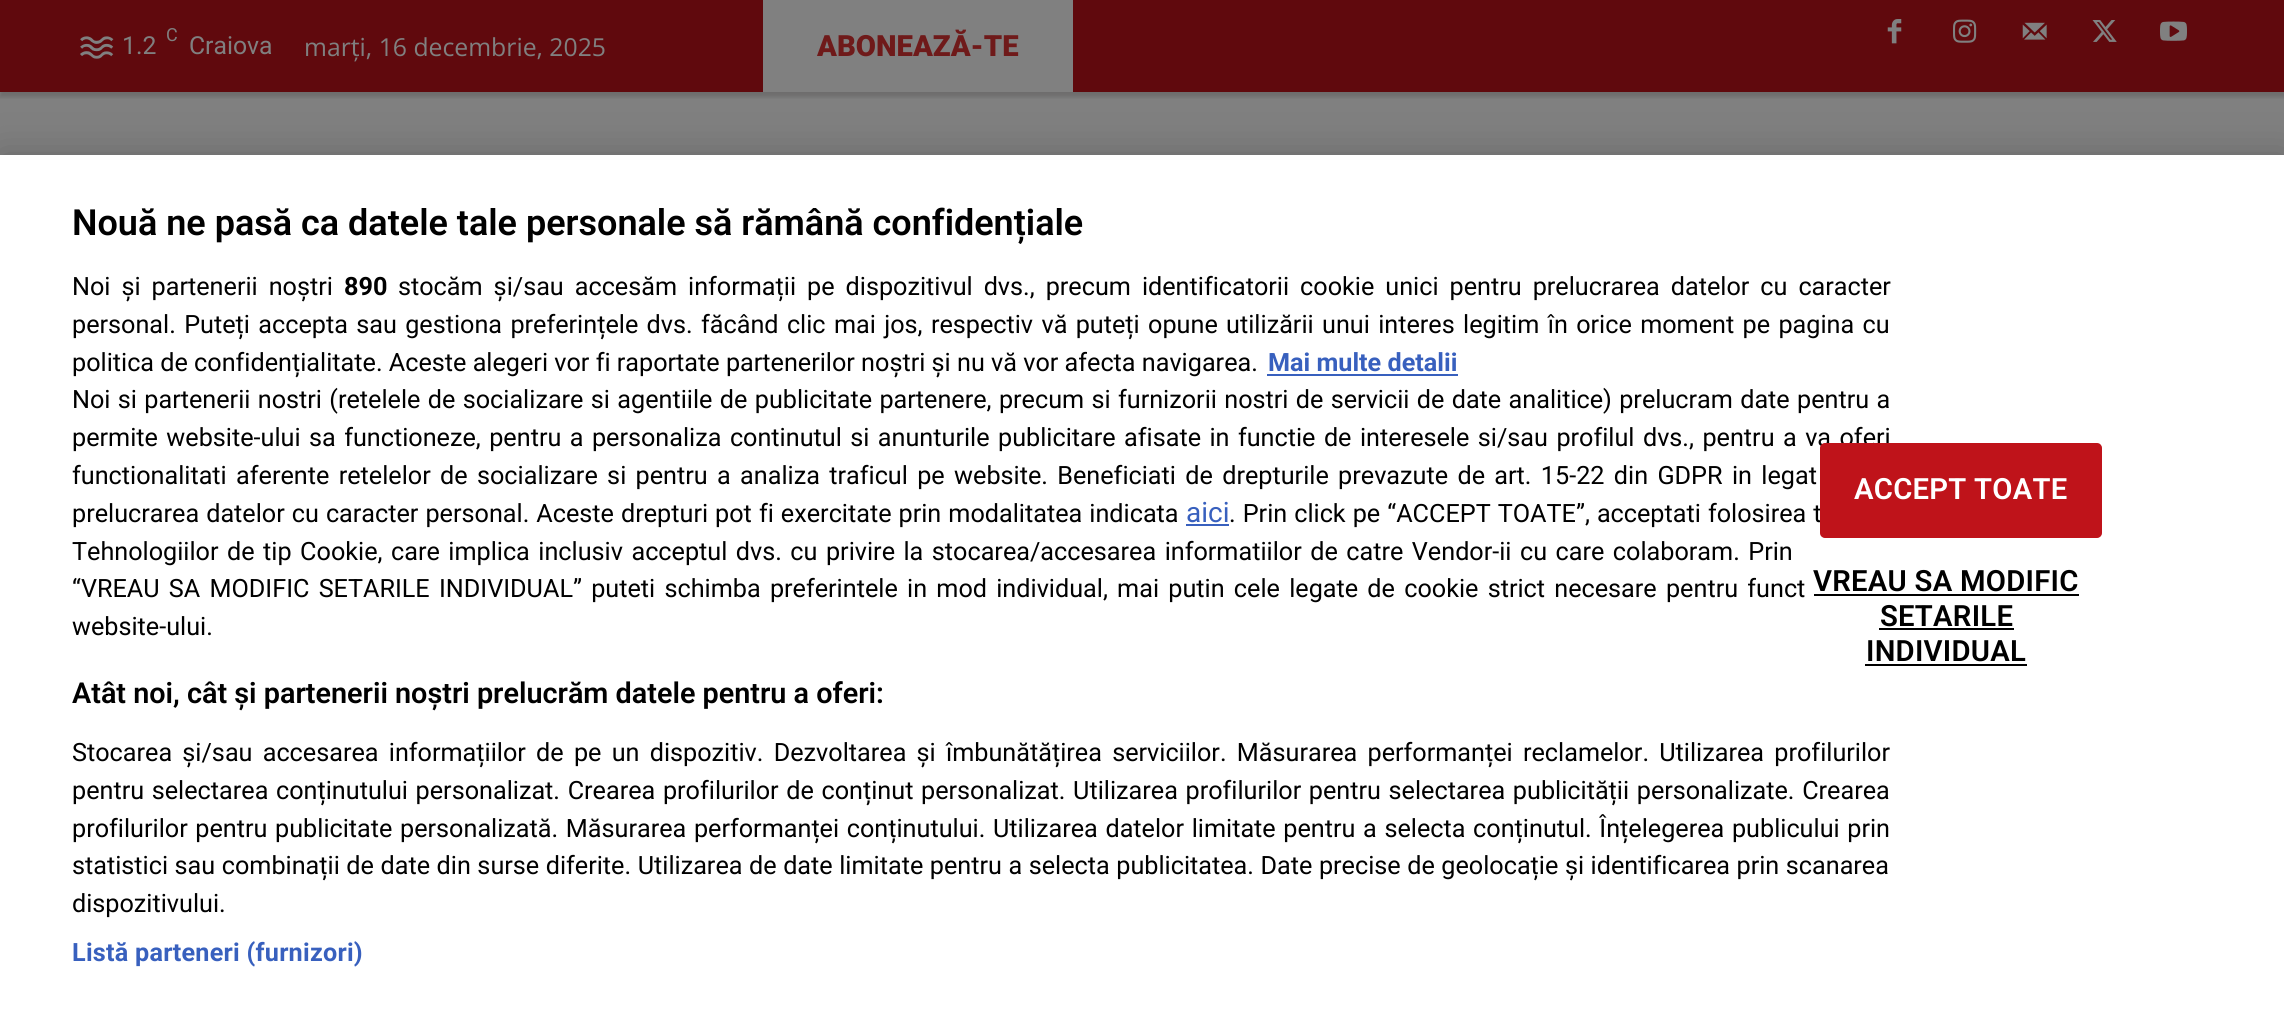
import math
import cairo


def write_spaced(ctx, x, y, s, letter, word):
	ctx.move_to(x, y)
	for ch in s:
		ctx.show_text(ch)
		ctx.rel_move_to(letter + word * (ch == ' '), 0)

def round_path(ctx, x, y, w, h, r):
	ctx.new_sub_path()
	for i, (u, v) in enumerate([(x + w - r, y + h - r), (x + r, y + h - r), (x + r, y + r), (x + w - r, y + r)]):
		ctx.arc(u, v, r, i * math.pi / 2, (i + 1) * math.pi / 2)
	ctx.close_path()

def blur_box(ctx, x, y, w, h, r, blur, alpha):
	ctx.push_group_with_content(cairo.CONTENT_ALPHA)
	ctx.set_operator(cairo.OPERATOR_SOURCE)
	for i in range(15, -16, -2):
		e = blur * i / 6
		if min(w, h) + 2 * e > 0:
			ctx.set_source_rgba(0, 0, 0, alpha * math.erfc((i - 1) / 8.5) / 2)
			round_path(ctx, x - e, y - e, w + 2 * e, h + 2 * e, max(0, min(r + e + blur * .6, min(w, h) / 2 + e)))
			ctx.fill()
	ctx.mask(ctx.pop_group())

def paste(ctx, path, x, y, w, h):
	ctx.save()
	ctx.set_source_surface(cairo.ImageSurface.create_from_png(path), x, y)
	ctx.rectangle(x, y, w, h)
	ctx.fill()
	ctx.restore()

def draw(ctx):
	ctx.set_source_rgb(0.502, 0.502, 0.502)
	ctx.paint()
	ctx.set_source_rgb(0.376, 0.039, 0.051)
	ctx.rectangle(0, 0, 2284, 92)
	ctx.fill()
	paste(ctx, 'media/1.png', 80, 36, 34, 23)
	ctx.set_source_rgb(0.502, 0.502, 0.502)
	ctx.rectangle(763, 0, 310, 92)
	ctx.fill()
	paste(ctx, 'media/2.png', 1887, 19, 15, 25)
	paste(ctx, 'media/3.png', 1953, 19, 24, 24)
	paste(ctx, 'media/4.png', 2022, 22, 25, 18)
	paste(ctx, 'media/5.png', 2092, 20, 25, 22)
	paste(ctx, 'media/6.png', 2160, 21, 27, 20)
	ctx.save()
	ctx.rectangle(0, 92, 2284, 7)
	ctx.clip()
	ctx.set_source_rgb(0.02, 0, 0)
	blur_box(ctx, 0, 5, 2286, 92, 0, 2, 0.15)
	ctx.restore()
	ctx.select_font_face('Roboto')
	ctx.set_font_size(24.75)
	ctx.move_to(122, 54)
	ctx.show_text('1.2')
	ctx.set_font_size(18)
	ctx.move_to(166, 41)
	ctx.show_text('C')
	ctx.set_font_size(24.75)
	ctx.move_to(189, 54)
	ctx.show_text('Craiova')
	ctx.select_font_face('Open Sans')
	ctx.move_to(304, 56)
	ctx.show_text('marți, 16 decembrie, 2025')
	ctx.select_font_face('Roboto Black')
	ctx.set_font_size(29.25)
	ctx.set_source_rgb(0.435, 0.102, 0.102)
	ctx.move_to(817, 56)
	ctx.show_text('ABONEAZĂ-TE')
	ctx.set_source_rgb(0, 0, 0)
	blur_box(ctx, 0, 155, 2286, 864, 0, 20, 0.2)
	ctx.set_source_rgb(1, 1, 1)
	ctx.rectangle(0, 155, 2284, 863)
	ctx.fill()
	ctx.select_font_face('Roboto SemiBold')
	ctx.set_font_size(36)
	ctx.set_source_rgb(0, 0, 0)
	ctx.move_to(72, 235)
	ctx.show_text('Nouă ne pasă ca datele tale personale să rămână confidențiale')
	ctx.select_font_face('Roboto')
	ctx.set_font_size(25.2)
	write_spaced(ctx, 72, 295, 'Noi și partenerii noștri', 0, 4.75)
	ctx.select_font_face('Roboto', cairo.FONT_SLANT_NORMAL, cairo.FONT_WEIGHT_BOLD)
	ctx.move_to(344, 295)
	ctx.show_text('890')
	ctx.select_font_face('Roboto')
	write_spaced(ctx, 398, 295, 'stocăm și/sau accesăm informații pe dispozitivul dvs., precum identificatorii cookie unici pentru prelucrarea datelor cu caracter', 0, 4.75)
	write_spaced(ctx, 72, 333, 'personal. Puteți accepta sau gestiona preferințele dvs. făcând clic mai jos, respectiv vă puteți opune utilizării unui interes legitim în orice moment pe pagina cu', 0, 2.1)
	ctx.move_to(72, 371)
	ctx.show_text('politica de confidențialitate. Aceste alegeri vor fi raportate partenerilor noștri și nu vă vor afecta navigarea.')
	ctx.select_font_face('Roboto', cairo.FONT_SLANT_NORMAL, cairo.FONT_WEIGHT_BOLD)
	ctx.set_source_rgb(0.22, 0.376, 0.745)
	ctx.move_to(1268, 371)
	ctx.show_text('Mai multe detalii')
	ctx.rectangle(1267, 374, 191, 2)
	ctx.fill()
	ctx.select_font_face('Roboto')
	ctx.set_source_rgb(0, 0, 0)
	write_spaced(ctx, 72, 408, 'Noi si partenerii nostri (retelele de socializare si agentiile de publicitate partenere, precum si furnizorii nostri de servicii de date analitice) prelucram date pentru a', 0, 1.1)
	write_spaced(ctx, 72, 446, 'permite website-ului sa functioneze, pentru a personaliza continutul si anunturile publicitare afisate in functie de interesele si/sau profilul dvs., pentru a va oferi', 0, 2.2)
	write_spaced(ctx, 72, 484, 'functionalitati aferente retelelor de socializare si pentru a analiza traficul pe website. Beneficiati de drepturile prevazute de art. 15-22 din GDPR in legat', 0, 3.1)
	write_spaced(ctx, 72, 522, 'prelucrarea datelor cu caracter personal. Aceste drepturi pot fi exercitate prin modalitatea indicata', 0, 0.8)
	ctx.set_font_size(28)
	ctx.set_source_rgb(0.22, 0.376, 0.745)
	ctx.move_to(1186, 522)
	ctx.show_text('aici')
	ctx.rectangle(1186, 524, 43, 2)
	ctx.fill()
	ctx.set_font_size(25.2)
	ctx.set_source_rgb(0, 0, 0)
	write_spaced(ctx, 1229, 522, '. Prin click pe “ACCEPT TOATE”, acceptati folosirea t', 0, 0.8)
	write_spaced(ctx, 72, 560, 'Tehnologiilor de tip Cookie, care implica inclusiv acceptul dvs. cu privire la stocarea/accesarea informatiilor de catre Vendor-ii cu care colaboram. Prin', 0, 2.25)
	write_spaced(ctx, 72, 597, '“VREAU SA MODIFIC SETARILE INDIVIDUAL” puteti schimba preferintele in mod individual, mai putin cele legate de cookie strict necesare pentru funct', 0, 3)
	ctx.move_to(72, 635)
	ctx.show_text('website-ului.')
	ctx.select_font_face('Roboto SemiBold')
	ctx.set_font_size(28.8)
	ctx.move_to(72, 703)
	ctx.show_text('Atât noi, cât și partenerii noștri prelucrăm datele pentru a oferi:')
	ctx.select_font_face('Roboto')
	ctx.set_font_size(25.2)
	write_spaced(ctx, 72, 761, 'Stocarea și/sau accesarea informațiilor de pe un dispozitiv. Dezvoltarea și îmbunătățirea serviciilor. Măsurarea performanței reclamelor. Utilizarea profilurilor', 0, 4)
	write_spaced(ctx, 72, 799, 'pentru selectarea conținutului personalizat. Crearea profilurilor de conținut personalizat. Utilizarea profilurilor pentru selectarea publicității personalizate. Crearea', 0, 1.4)
	write_spaced(ctx, 72, 837, 'profilurilor pentru publicitate personalizată. Măsurarea performanței conținutului. Utilizarea datelor limitate pentru a selecta conținutul. Înțelegerea publicului prin', 0, 1.4)
	write_spaced(ctx, 72, 874, 'statistici sau combinații de date din surse diferite. Utilizarea de date limitate pentru a selecta publicitatea. Date precise de geolocație și identificarea prin scanarea', 0, 0.3)
	ctx.move_to(72, 912)
	ctx.show_text('dispozitivului.')
	ctx.select_font_face('Roboto', cairo.FONT_SLANT_NORMAL, cairo.FONT_WEIGHT_BOLD)
	ctx.set_source_rgb(0.22, 0.376, 0.745)
	write_spaced(ctx, 72, 961, 'Listă parteneri (furnizori)', 0.25, 0)
	ctx.set_source_rgb(0.749, 0.078, 0.102)
	round_path(ctx, 1821, 444, 280, 93, 4)
	ctx.fill_preserve()
	ctx.stroke()
	ctx.select_font_face('Roboto SemiBold')
	ctx.set_font_size(29.25)
	ctx.set_source_rgb(1, 1, 1)
	write_spaced(ctx, 1854, 499, 'ACCEPT TOATE', 0.25, 0)
	ctx.set_source_rgb(0, 0, 0)
	write_spaced(ctx, 1813, 591, 'VREAU SA MODIFIC', 0.25, 0)
	ctx.rectangle(1814, 594, 265, 2)
	ctx.fill()
	write_spaced(ctx, 1880, 626, 'SETARILE', 0.25, 0)
	ctx.rectangle(1879, 628, 135, 2)
	ctx.fill()
	write_spaced(ctx, 1866, 661, 'INDIVIDUAL', 0.25, 0)
	ctx.rectangle(1865, 664, 162, 2)
	ctx.fill()


surface = cairo.ImageSurface(cairo.FORMAT_RGB24, 2284, 1018)
ctx = cairo.Context(surface)
options = cairo.FontOptions()
options.set_hint_metrics(cairo.HINT_METRICS_OFF)
options.set_hint_style(cairo.HINT_STYLE_NONE)
ctx.set_font_options(options)
ctx.set_miter_limit(4)
draw(ctx)
surface.write_to_png('image.png')
